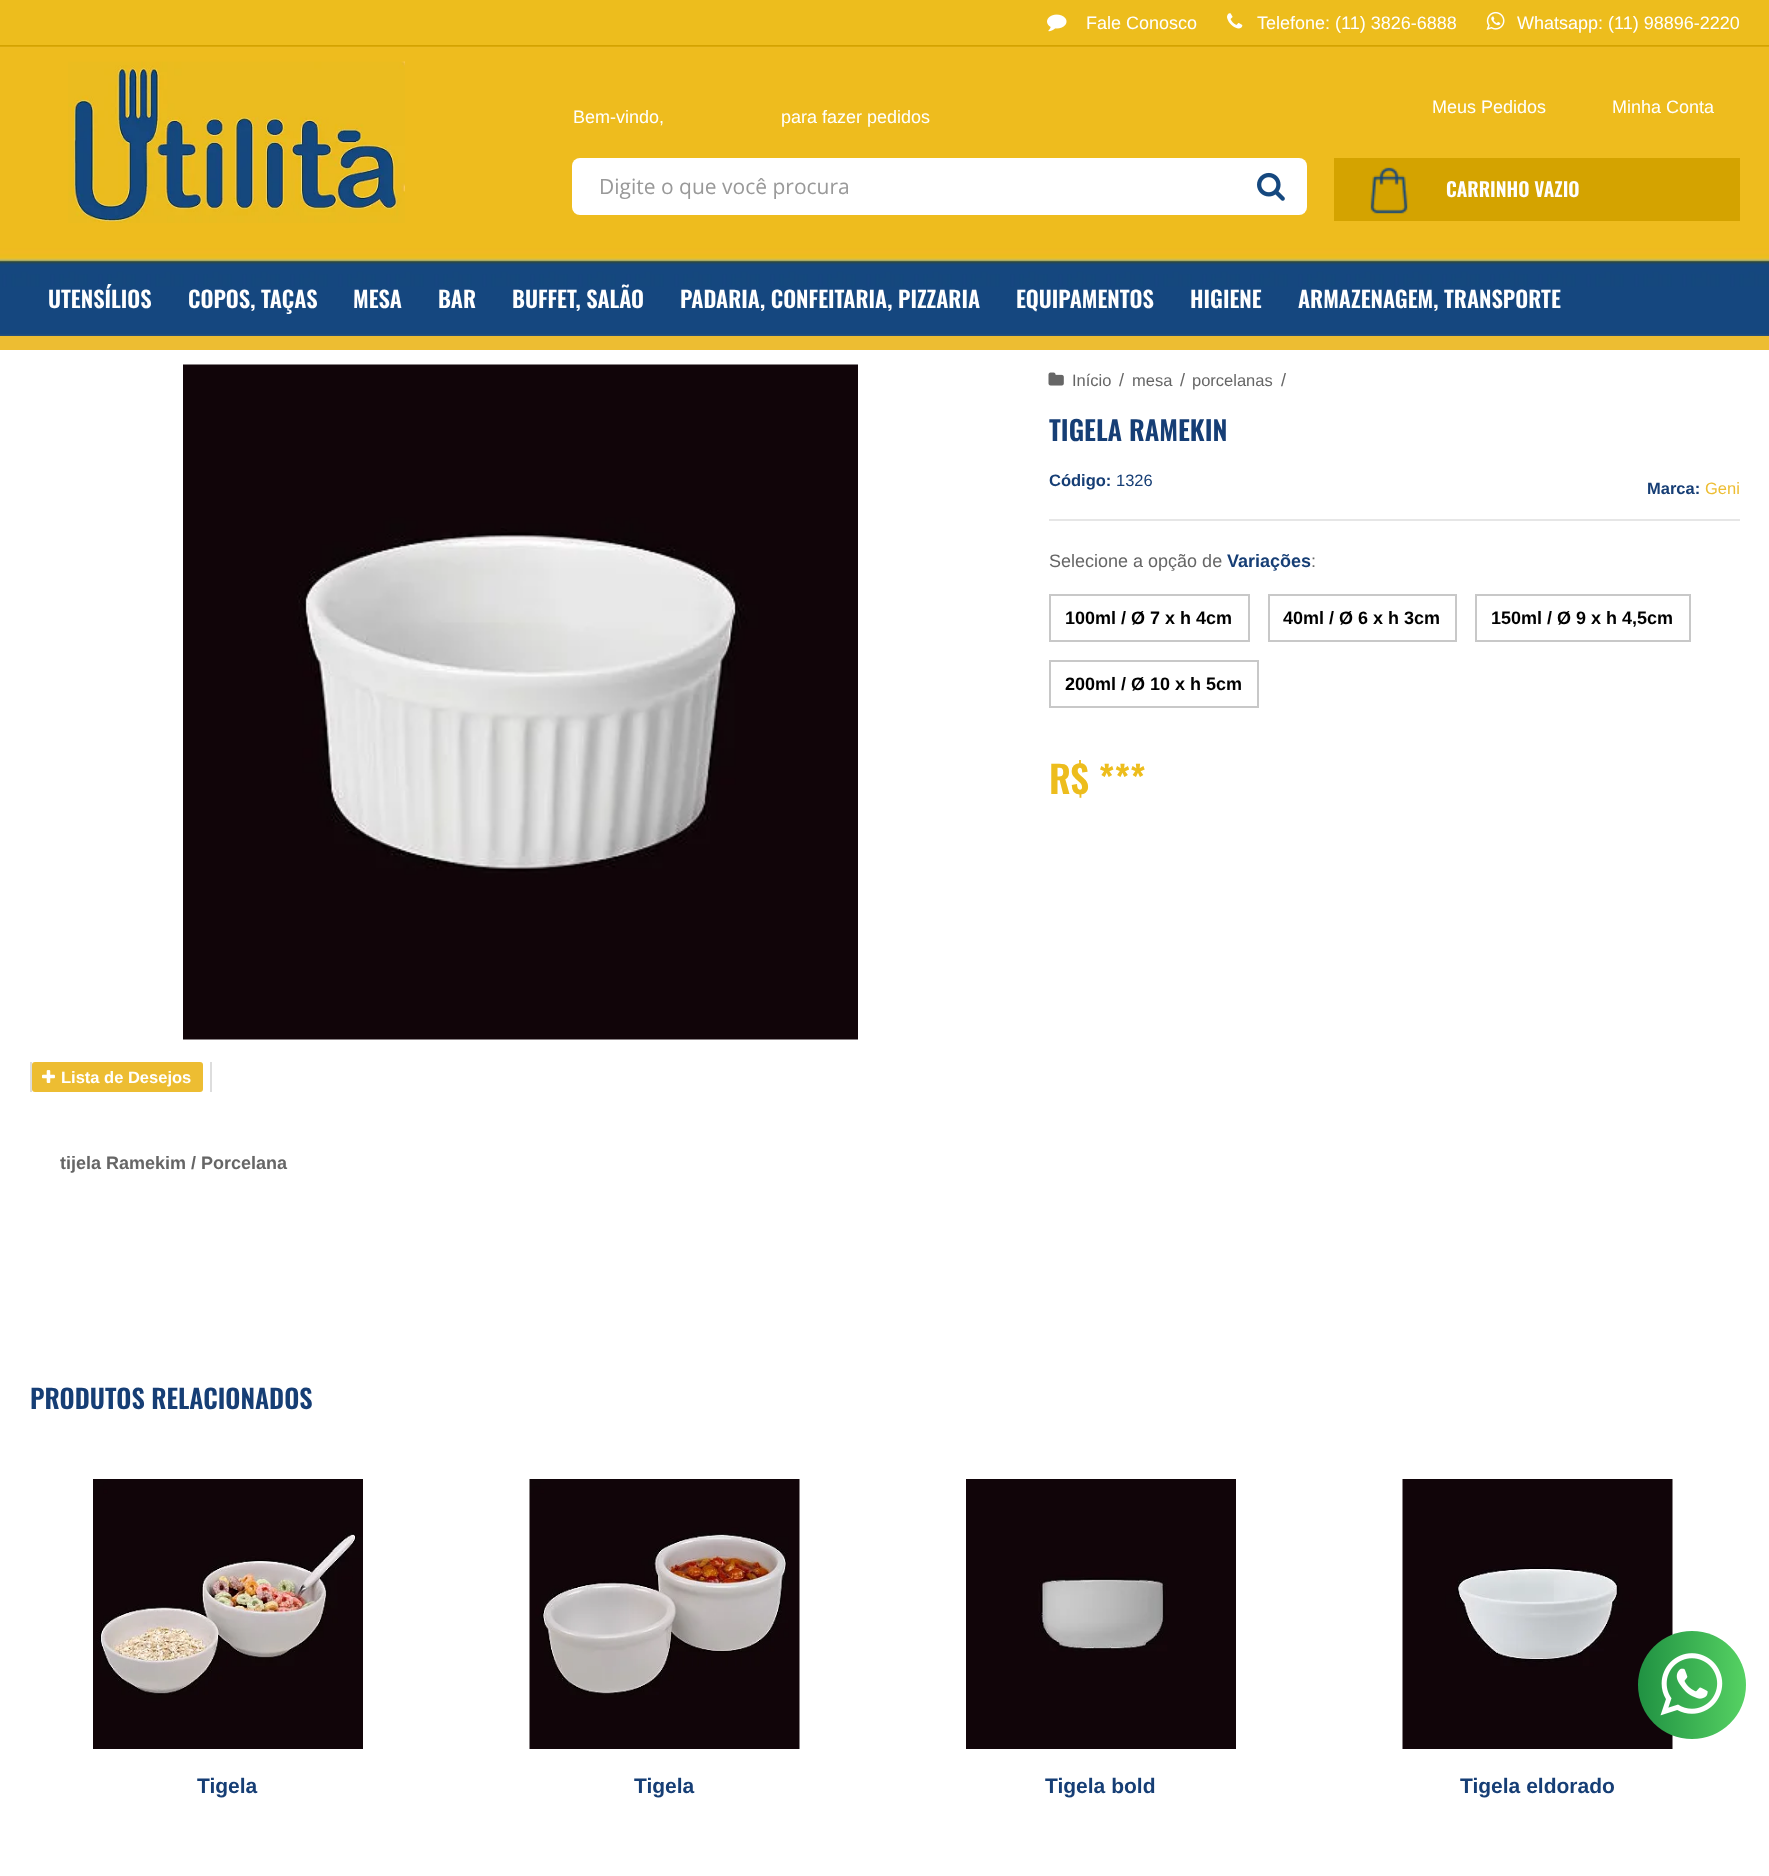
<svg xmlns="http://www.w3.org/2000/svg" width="1769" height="1876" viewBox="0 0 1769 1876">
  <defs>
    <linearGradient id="g1" gradientUnits="userSpaceOnUse" x1="1638" y1="1685" x2="1746" y2="1685"><stop offset="0" stop-color="#209142"/><stop offset="1" stop-color="#56d263"/></linearGradient>
  </defs>
  <rect width="100%" height="100%" fill="#ffffff"/>
  <rect x="0" y="0" width="1769" height="45" fill="#edbd1d"/>
  <rect x="0" y="45" width="1769" height="2" fill="#d4a300"/>
  <image x="1047" y="14" width="20" height="18" href="img1.png"/>
  <text x="1086" y="29" font-family="Liberation Sans" font-size="18" fill="#ffffff">Fale Conosco</text>
  <image x="1227" y="13" width="16" height="16" href="img2.png"/>
  <text x="1257" y="29" font-family="Liberation Sans" font-size="18" fill="#ffffff">Telefone: (11) 3826-6888</text>
  <image x="1486" y="11" width="19" height="19" href="img3.png"/>
  <text x="1517" y="29" font-family="Liberation Sans" font-size="18" fill="#ffffff">Whatsapp: (11) 98896-2220</text>
  <rect x="0" y="47" width="1769" height="303" fill="#edbd32"/>
  <image x="0" y="46" width="1769" height="290" href="img4.png"/>
  <image x="68" y="61" width="337" height="162" href="img5.png"/>
  <text x="1432" y="113" font-family="Liberation Sans" font-size="18" fill="#ffffff">Meus Pedidos</text>
  <text x="1612" y="113" font-family="Liberation Sans" font-size="18" fill="#ffffff">Minha Conta</text>
  <text x="573" y="123" font-family="Liberation Sans" font-size="18" fill="#ffffff">Bem-vindo,</text>
  <text x="781" y="123" font-family="Liberation Sans" font-size="18" fill="#ffffff">para fazer pedidos</text>
  <rect x="572" y="158" width="735" height="57" rx="8" fill="#ffffff"/>
  <text x="599" y="194" font-family="Open Sans" font-size="21" fill="#999999">Digite o que você procura</text>
  <image x="1257" y="172" width="28" height="29" href="img6.png"/>
  <rect x="1334" y="158" width="406" height="63" fill="#d4a300"/>
  <image x="1370" y="167" width="38" height="47" href="img7.png"/>
  <text x="1446" y="197" font-family="Oswald" font-size="19.5" font-weight="600" fill="#ffffff">CARRINHO VAZIO</text>
  <text x="48" y="308" font-family="Oswald" font-size="22.5" font-weight="600" fill="#ffffff">UTENSÍLIOS</text>
  <text x="188" y="308" font-family="Oswald" font-size="22.5" font-weight="600" fill="#ffffff">COPOS, TAÇAS</text>
  <text x="353" y="308" font-family="Oswald" font-size="22.5" font-weight="600" fill="#ffffff">MESA</text>
  <text x="438" y="308" font-family="Oswald" font-size="22.5" font-weight="600" fill="#ffffff">BAR</text>
  <text x="512" y="308" font-family="Oswald" font-size="22.5" font-weight="600" fill="#ffffff">BUFFET, SALÃO</text>
  <text x="680" y="308" font-family="Oswald" font-size="22.5" font-weight="600" fill="#ffffff">PADARIA, CONFEITARIA, PIZZARIA</text>
  <text x="1016" y="308" font-family="Oswald" font-size="22.5" font-weight="600" fill="#ffffff">EQUIPAMENTOS</text>
  <text x="1190" y="308" font-family="Oswald" font-size="22.5" font-weight="600" fill="#ffffff">HIGIENE</text>
  <text x="1298" y="308" font-family="Oswald" font-size="22.5" font-weight="600" fill="#ffffff">ARMAZENAGEM, TRANSPORTE</text>
  <image x="1048" y="372" width="16" height="14" href="img8.png"/>
  <text x="1072" y="386" font-family="Liberation Sans" font-size="16.5" fill="#666666">Início</text>
  <text x="1119" y="386" font-family="Liberation Sans" font-size="18" fill="#666666">/</text>
  <text x="1132" y="386" font-family="Liberation Sans" font-size="16.5" fill="#666666">mesa</text>
  <text x="1180" y="386" font-family="Liberation Sans" font-size="18" fill="#666666">/</text>
  <text x="1192" y="386" font-family="Liberation Sans" font-size="16.5" fill="#666666">porcelanas</text>
  <text x="1281" y="386" font-family="Liberation Sans" font-size="18" fill="#666666">/</text>
  <text x="1049" y="441" font-family="Oswald" font-size="27" font-weight="600" fill="#163e75">TIGELA RAMEKIN</text>
  <rect x="1049" y="519" width="691" height="2" fill="#e6e6e6"/>
  <text x="1049" y="486" font-family="Liberation Sans" font-size="16.5" font-weight="bold" fill="#163e75">Código:</text>
  <text x="1116" y="486" font-family="Liberation Sans" font-size="16.5" fill="#163e75">1326</text>
  <text x="1647" y="494" font-family="Liberation Sans" font-size="16.5" font-weight="bold" fill="#163e75">Marca:</text>
  <text x="1705" y="494" font-family="Liberation Sans" font-size="16.5" fill="#edbd32">Geni</text>
  <text x="1049" y="567" font-family="Liberation Sans" font-size="18" fill="#666666">Selecione a opção de</text>
  <text x="1227" y="567" font-family="Liberation Sans" font-size="18" font-weight="bold" fill="#163e75">Variações</text>
  <text x="1311" y="567" font-family="Liberation Sans" font-size="18" fill="#666666">:</text>
  <rect x="1050" y="595" width="199" height="46" fill="none" stroke="#c8c8c8" stroke-width="2"/>
  <text x="1065" y="624" font-family="Liberation Sans" font-size="18" font-weight="bold" fill="#000000">100ml / Ø 7 x h 4cm</text>
  <rect x="1269" y="595" width="187" height="46" fill="none" stroke="#c8c8c8" stroke-width="2"/>
  <text x="1283" y="624" font-family="Liberation Sans" font-size="18" font-weight="bold" fill="#000000">40ml / Ø 6 x h 3cm</text>
  <rect x="1476" y="595" width="214" height="46" fill="none" stroke="#c8c8c8" stroke-width="2"/>
  <text x="1491" y="624" font-family="Liberation Sans" font-size="18" font-weight="bold" fill="#000000">150ml / Ø 9 x h 4,5cm</text>
  <rect x="1050" y="661" width="208" height="46" fill="none" stroke="#c8c8c8" stroke-width="2"/>
  <text x="1065" y="690" font-family="Liberation Sans" font-size="18" font-weight="bold" fill="#000000">200ml / Ø 10 x h 5cm</text>
  <text x="1049" y="794" font-family="Oswald" font-size="37.5" font-weight="600" fill="#edbd1d">R$ ***</text>
  <image x="183" y="364" width="675" height="676" href="img9.png"/>
  <rect x="30" y="1062" width="2" height="30" fill="#dddddd"/>
  <rect x="32" y="1062" width="171" height="30" rx="3" fill="#edbd32"/>
  <image x="42" y="1070" width="13" height="13" href="img10.png"/>
  <text x="61" y="1083" font-family="Liberation Sans" font-size="16.5" font-weight="bold" fill="#ffffff">Lista de Desejos</text>
  <rect x="210" y="1062" width="2" height="30" fill="#dddddd"/>
  <text x="60" y="1169" font-family="Liberation Sans" font-size="18" font-weight="bold" fill="#666666">tijela Ramekim / Porcelana</text>
  <text x="30" y="1409" font-family="Oswald" font-size="26.25" font-weight="600" fill="#163e75">PRODUTOS RELACIONADOS</text>
  <image x="93" y="1479" width="270" height="270" href="img11.png"/>
  <text x="197" y="1793" font-family="Liberation Sans" font-size="21" font-weight="bold" fill="#163e75">Tigela</text>
  <image x="529" y="1479" width="271" height="270" href="img12.png"/>
  <text x="634" y="1793" font-family="Liberation Sans" font-size="21" font-weight="bold" fill="#163e75">Tigela</text>
  <image x="966" y="1479" width="270" height="270" href="img13.png"/>
  <text x="1045" y="1793" font-family="Liberation Sans" font-size="21" font-weight="bold" fill="#163e75">Tigela bold</text>
  <image x="1402" y="1479" width="271" height="270" href="img14.png"/>
  <text x="1460" y="1793" font-family="Liberation Sans" font-size="21" font-weight="bold" fill="#163e75">Tigela eldorado</text>
  <circle cx="1692" cy="1685" r="54" fill="url(#g1)"/>
  <image x="1660" y="1653" width="63" height="63" href="img15.png"/>
</svg>
